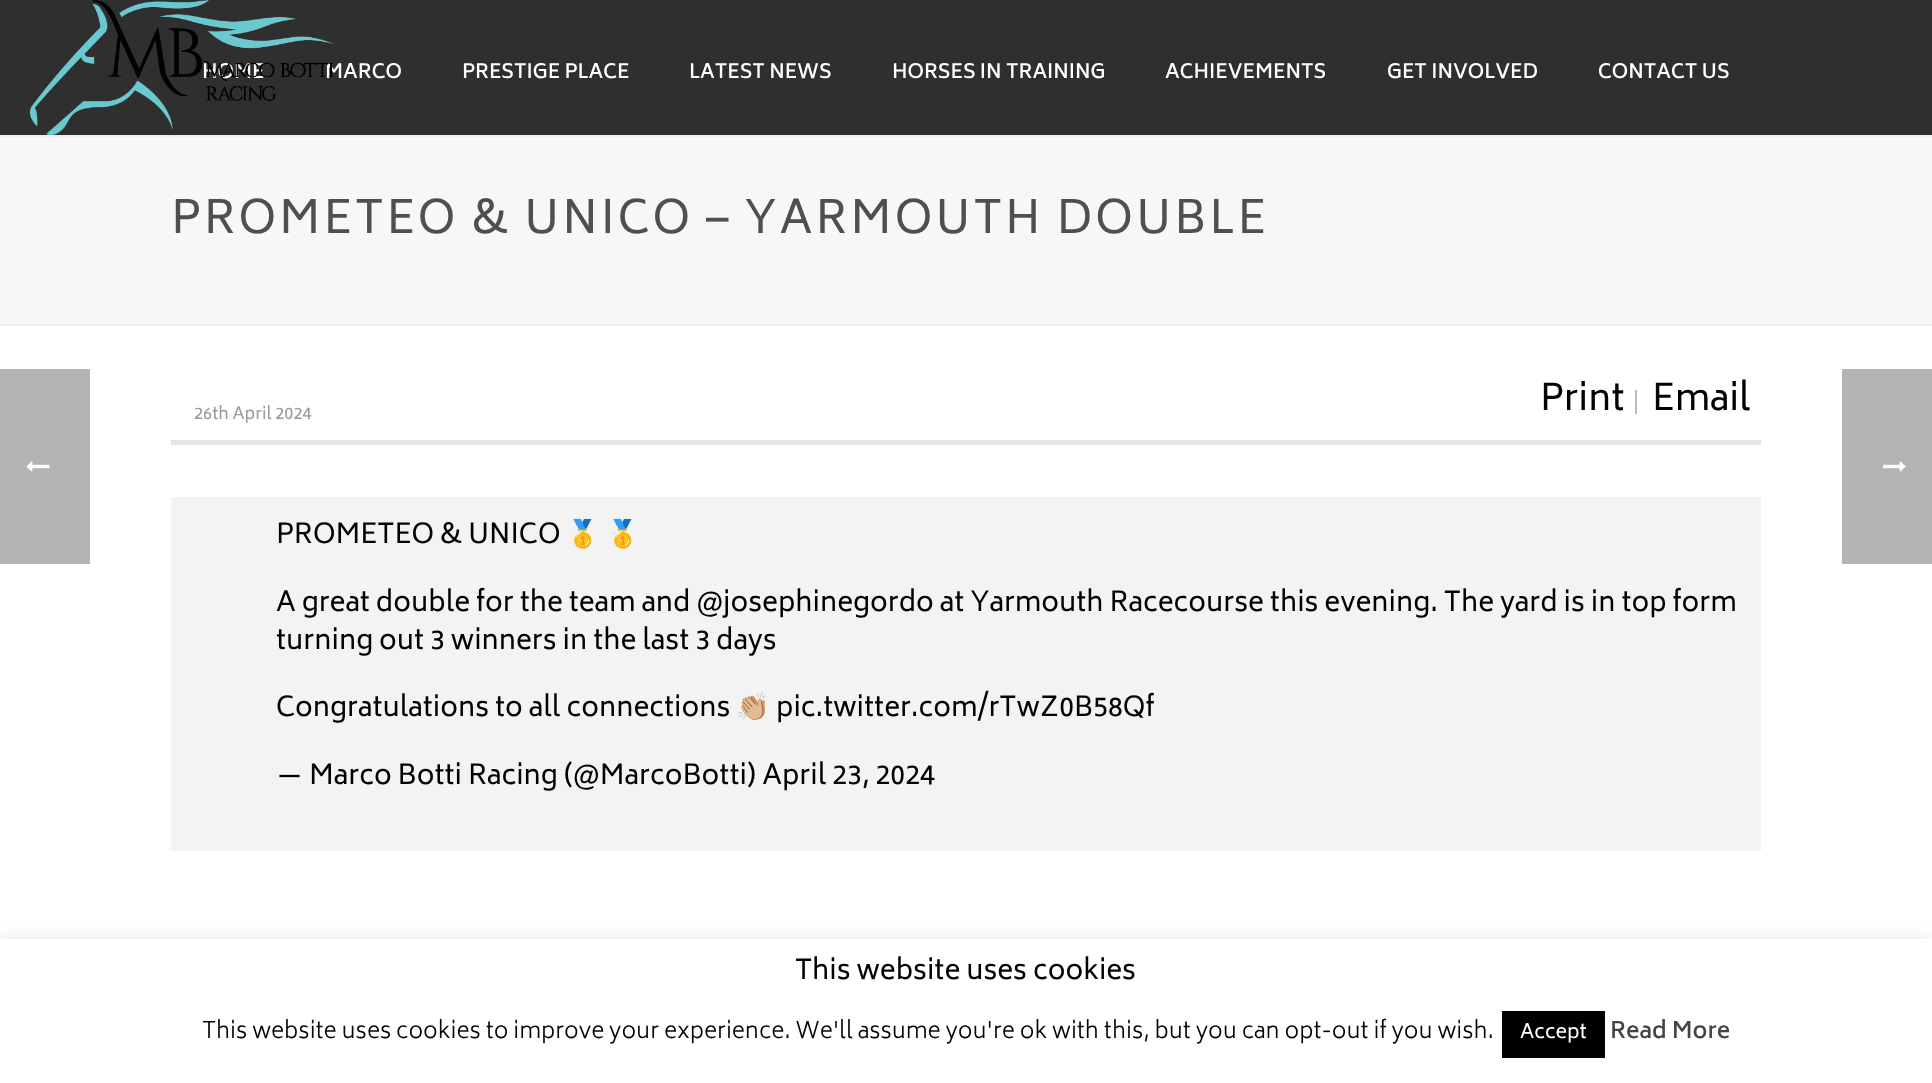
<svg xmlns="http://www.w3.org/2000/svg" width="1932" height="1083" viewBox="0 0 1932 1083">
  <defs>
    <filter id="blur1" x="-50%" y="-200%" width="200%" height="500%"><feGaussianBlur stdDeviation="7.5"/></filter>
  </defs>
  <rect width="100%" height="100%" fill="#ffffff"/>
  <rect x="0" y="369" width="90" height="195" fill="#b3b3b3"/>
  <image x="26" y="461" width="24" height="11" href="img1.png"/>
  <rect x="0" y="137" width="1932" height="187" fill="#f7f7f7"/>
  <rect x="0" y="324" width="1932" height="2" fill="#ededed"/>
  <rect x="0" y="135" width="1932" height="2" fill="#ededed"/>
  <rect x="0" y="0" width="1932" height="135" fill="#2f2f2f"/>
  <text x="202" y="78" font-family="Biryani" font-size="19.5" font-weight="600" fill="#ffffff">HOME</text>
  <text x="325" y="78" font-family="Biryani" font-size="19.5" font-weight="600" fill="#ffffff">MARCO</text>
  <image x="30" y="0" width="303" height="135" href="img2.png"/>
  <text x="462" y="78" font-family="Biryani" font-size="19.5" font-weight="600" fill="#ffffff">PRESTIGE PLACE</text>
  <text x="689" y="78" font-family="Biryani" font-size="19.5" font-weight="600" fill="#ffffff">LATEST NEWS</text>
  <text x="892" y="78" font-family="Biryani" font-size="19.5" font-weight="600" fill="#ffffff">HORSES IN TRAINING</text>
  <text x="1165" y="78" font-family="Biryani" font-size="19.5" font-weight="600" fill="#ffffff">ACHIEVEMENTS</text>
  <text x="1387" y="78" font-family="Biryani" font-size="19.5" font-weight="600" fill="#ffffff">GET INVOLVED</text>
  <text x="1598" y="78" font-family="Biryani" font-size="19.5" font-weight="600" fill="#ffffff">CONTACT US</text>
  <text x="171" y="233" font-family="Biryani" font-size="45" letter-spacing="3" fill="#4f4f4f">PROMETEO &amp; UNICO – YARMOUTH DOUBLE</text>
  <rect x="171" y="440" width="1590" height="5" fill="#e6e6e6"/>
  <rect x="1635" y="390" width="2" height="24" fill="#bcbcbc"/>
  <text x="1540" y="410" font-family="Biryani" font-size="36" fill="#020202">Print</text>
  <text x="1652" y="410" font-family="Biryani" font-size="36" fill="#020202">Email</text>
  <text x="194" y="419" font-family="Biryani" font-size="16.5" fill="#9a9a9a">26th April 2024</text>
  <rect x="171" y="497" width="1590" height="354" fill="#f3f3f3"/>
  <text x="276" y="543" font-family="Biryani" font-size="27" fill="#020202">PROMETEO &amp; UNICO</text>
  <text x="566" y="543" font-family="Noto Color Emoji" font-size="27" fill="#020202">🥇</text>
  <text x="606" y="543" font-family="Noto Color Emoji" font-size="27" fill="#020202">🥇</text>
  <text x="276" y="611" font-family="Biryani" font-size="27" fill="#020202">A great double for the team and @josephinegordo at Yarmouth Racecourse this evening. The yard is in top form</text>
  <text x="276" y="649" font-family="Biryani" font-size="27" fill="#020202">turning out 3 winners in the last 3 days</text>
  <text x="276" y="716" font-family="Biryani" font-size="27" fill="#020202">Congratulations to all connections</text>
  <text x="736" y="716" font-family="Noto Color Emoji" font-size="27" fill="#020202">👏🏼</text>
  <text x="776" y="716" font-family="Biryani" font-size="27" fill="#020202">pic.twitter.com/rTwZ0B58Qf</text>
  <text x="276" y="784" font-family="Biryani" font-size="27" fill="#020202">— Marco Botti Racing (@MarcoBotti) April 23, 2024</text>
  <rect x="1842" y="369" width="90" height="195" fill="#b3b3b3"/>
  <image x="1883" y="461" width="23" height="11" href="img3.png"/>
  <rect x="0" y="938" width="1932" height="144" fill="#acabab" fill-opacity="0.3" filter="url(#blur1)"/>
  <rect x="0" y="939" width="1932" height="144" fill="#ffffff"/>
  <text x="795" y="979" font-family="Biryani" font-size="27" fill="#020202">This website uses cookies</text>
  <text x="202" y="1038" font-family="Biryani" font-size="22.5" font-weight="300" fill="#020202">This website uses cookies to improve your experience. We'll assume you're ok with this, but you can opt-out if you wish.</text>
  <rect x="1502" y="1011" width="103" height="47" fill="#000000"/>
  <text x="1520" y="1038" font-family="Biryani" font-size="19.5" fill="#ffffff">Accept</text>
  <text x="1610" y="1038" font-family="Biryani" font-size="22.5" font-weight="600" fill="#444444">Read More</text>
</svg>
